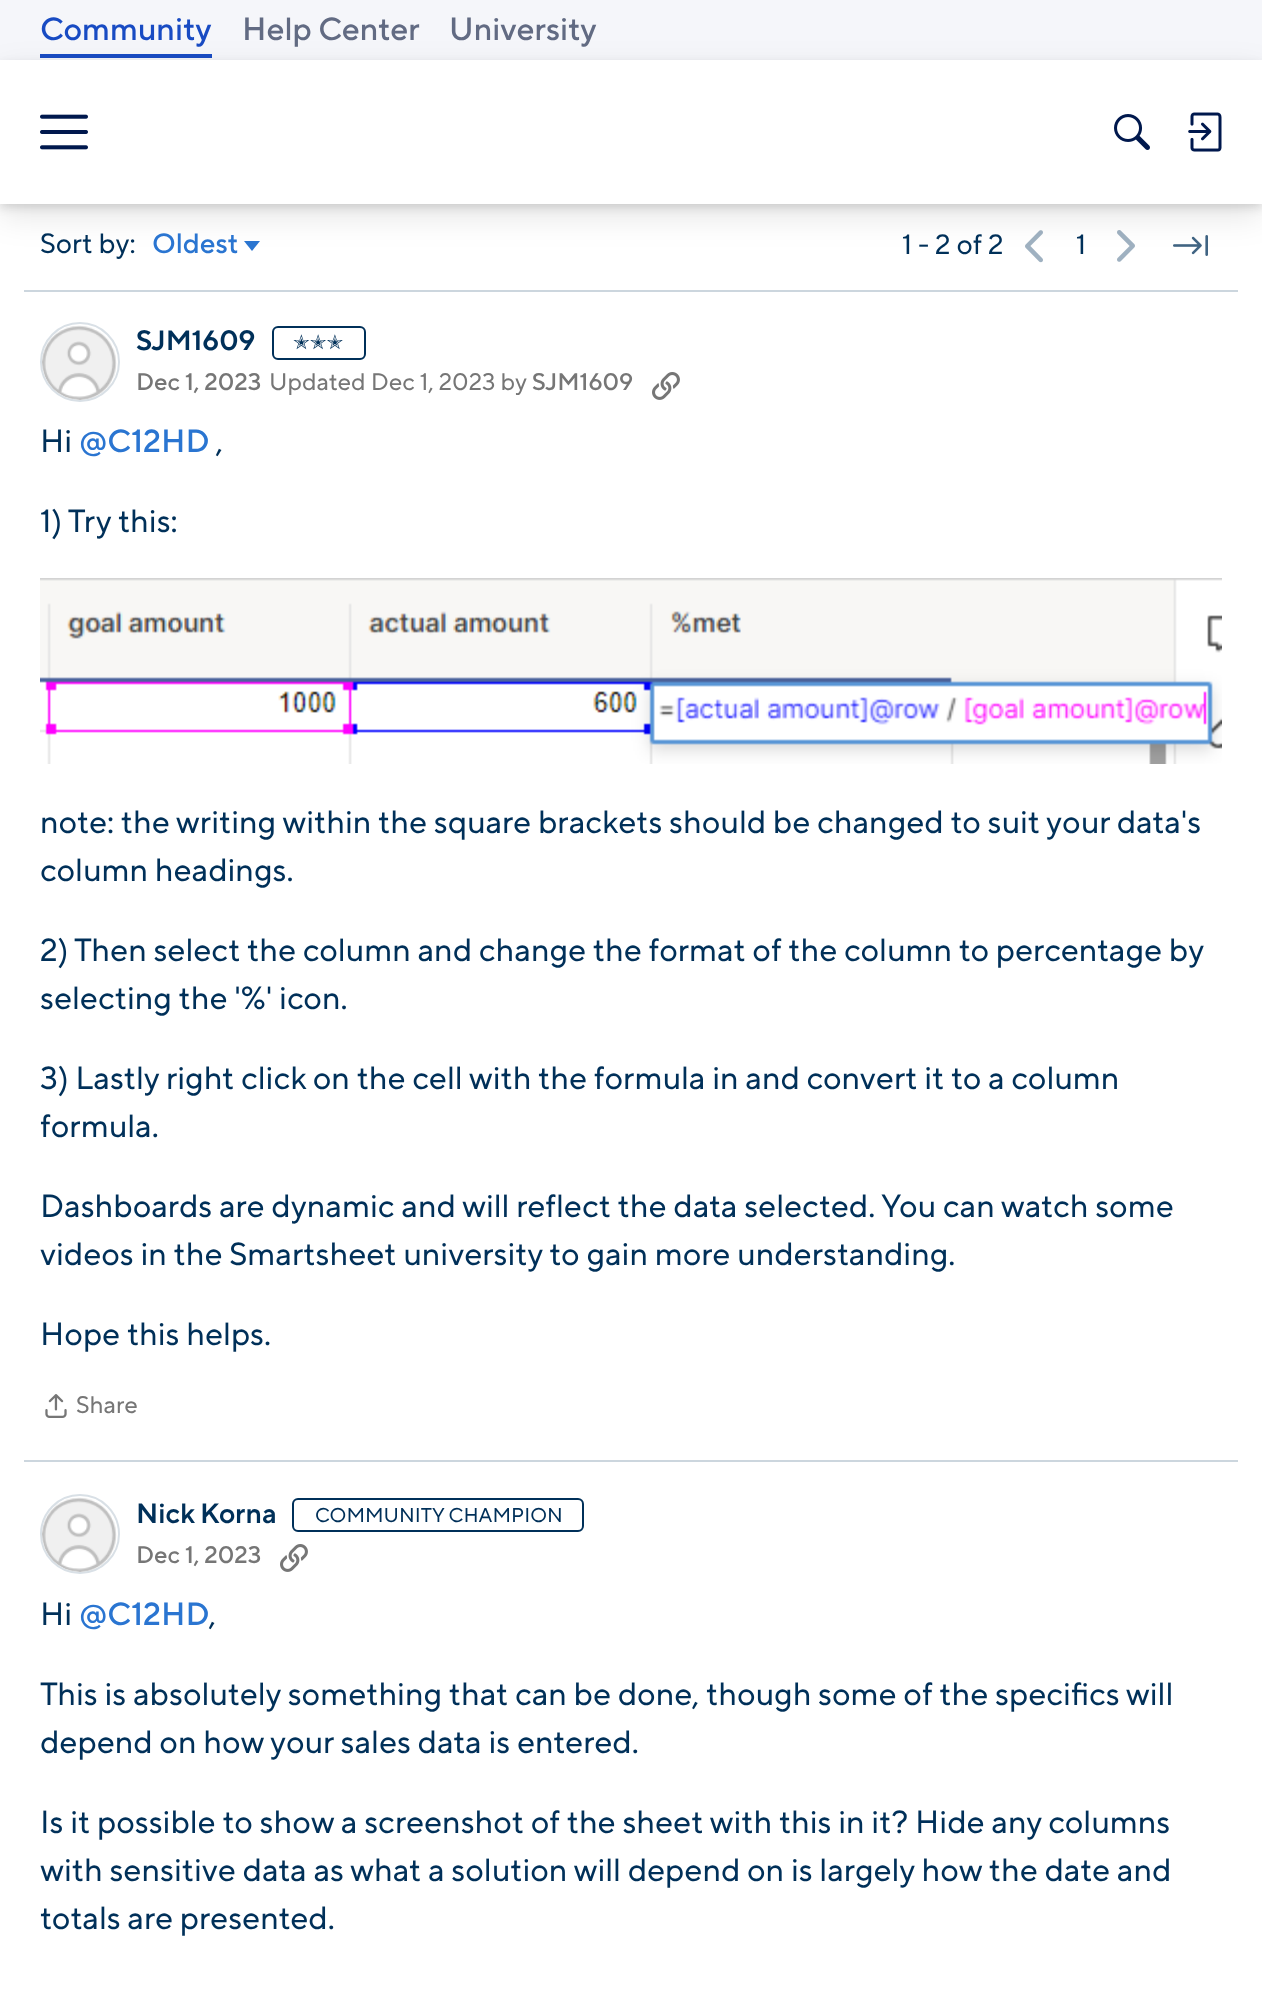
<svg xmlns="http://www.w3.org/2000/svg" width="1262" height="1995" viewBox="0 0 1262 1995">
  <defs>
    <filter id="blur1" x="-50%" y="-200%" width="200%" height="500%"><feGaussianBlur stdDeviation="16"/></filter>
    <filter id="blur2" x="-50%" y="-200%" width="200%" height="500%"><feGaussianBlur stdDeviation="4"/></filter>
  </defs>
  <rect width="100%" height="100%" fill="#ffffff"/>
  <rect x="0" y="0" width="1262" height="60" fill="#f5f6fa"/>
  <text x="40" y="40" font-family="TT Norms" font-size="32" font-weight="500" fill="#184bc3">Community</text>
  <rect x="40" y="54" width="172" height="4" fill="#184bc3"/>
  <text x="242" y="40" font-family="TT Norms" font-size="32" font-weight="500" fill="#626b83">Help Center</text>
  <text x="449" y="40" font-family="TT Norms" font-size="32" font-weight="500" fill="#626b83">University</text>
  <path d="M244 241H260L252 251Z" fill="#2a75d1"/>
  <image x="1025" y="230" width="18" height="33" href="img4.png"/>
  <image x="1117" y="230" width="18" height="32" href="img5.png"/>
  <image x="1173" y="235" width="35" height="21" href="img6.png"/>
  <rect x="0" y="72" width="1262" height="144" fill="#000000" fill-opacity="0.1" filter="url(#blur1)"/>
  <rect x="0" y="64" width="1262" height="144" fill="#000000" fill-opacity="0.12" filter="url(#blur2)"/>
  <rect x="0" y="60" width="1262" height="144" fill="#ffffff"/>
  <image x="40" y="114" width="48" height="36" href="img1.png"/>
  <image x="1114" y="114" width="36" height="36" href="img2.png"/>
  <image x="1188" y="112" width="34" height="40" href="img3.png"/>
  <text x="40" y="253" font-family="TT Norms" font-size="28" fill="#003059">Sort by:</text>
  <text x="152" y="253" font-family="TT Norms" font-size="28" font-weight="500" fill="#2a75d1">Oldest</text>
  <text x="902" y="254" font-family="TT Norms" font-size="28" fill="#003059">1 - 2 of 2</text>
  <text x="1076" y="254" font-family="TT Norms" font-size="28" fill="#003059">1</text>
  <rect x="24" y="290" width="1214" height="2" fill="#ccd6de"/>
  <circle cx="80" cy="362" r="39" fill="none" stroke="#d9e0e6" stroke-width="2"/>
  <image x="42" y="325" width="75" height="75" href="img7.png"/>
  <text x="136" y="350" font-family="TT Norms" font-size="28" font-weight="600" fill="#003059">SJM1609</text>
  <rect x="273" y="327" width="92" height="32" rx="5" fill="none" stroke="#003059" stroke-width="2"/>
  <text x="293" y="349" font-family="DejaVu Sans" font-size="20" fill="#003059">✭✭✭</text>
  <text x="136" y="390" font-family="TT Norms" font-size="24" font-weight="500" fill="#767676">Dec 1, 2023</text>
  <text x="269" y="390" font-family="TT Norms" font-size="24" fill="#767676">Updated Dec 1, 2023 by</text>
  <text x="532" y="390" font-family="TT Norms" font-size="24" font-weight="500" fill="#767676">SJM1609</text>
  <image x="652" y="372" width="28" height="28" href="img8.png"/>
  <text x="40" y="452" font-family="TT Norms" font-size="32" fill="#003059">Hi</text>
  <text x="79" y="452" font-family="TT Norms" font-size="32" font-weight="500" fill="#2a75d1">@C12HD</text>
  <text x="216" y="452" font-family="TT Norms" font-size="32" fill="#003059">,</text>
  <text x="40" y="532" font-family="TT Norms" font-size="32" fill="#003059">1) Try this:</text>
  <image x="40" y="578" width="1182" height="186" href="img9.png"/>
  <text x="40" y="833" font-family="TT Norms" font-size="32" fill="#003059">note: the writing within the square brackets should be changed to suit your data's</text>
  <text x="40" y="881" font-family="TT Norms" font-size="32" fill="#003059">column headings.</text>
  <text x="40" y="961" font-family="TT Norms" font-size="32" fill="#003059">2) Then select the column and change the format of the column to percentage by</text>
  <text x="40" y="1009" font-family="TT Norms" font-size="32" fill="#003059">selecting the '%' icon.</text>
  <text x="40" y="1089" font-family="TT Norms" font-size="32" fill="#003059">3) Lastly right click on the cell with the formula in and convert it to a column</text>
  <text x="40" y="1137" font-family="TT Norms" font-size="32" fill="#003059">formula.</text>
  <text x="40" y="1217" font-family="TT Norms" font-size="32" fill="#003059">Dashboards are dynamic and will reflect the data selected. You can watch some</text>
  <text x="40" y="1265" font-family="TT Norms" font-size="32" fill="#003059">videos in the Smartsheet university to gain more understanding.</text>
  <text x="40" y="1345" font-family="TT Norms" font-size="32" fill="#003059">Hope this helps.</text>
  <image x="45" y="1394" width="22" height="24" href="img10.png"/>
  <text x="76" y="1413" font-family="TT Norms" font-size="24" fill="#767676">Share</text>
  <rect x="24" y="1460" width="1214" height="2" fill="#ccd6de"/>
  <circle cx="80" cy="1534" r="39" fill="none" stroke="#d9e0e6" stroke-width="2"/>
  <image x="42" y="1497" width="75" height="75" href="img11.png"/>
  <text x="136" y="1523" font-family="TT Norms" font-size="28" font-weight="600" fill="#003059">Nick Korna</text>
  <rect x="293" y="1499" width="290" height="32" rx="5" fill="none" stroke="#003059" stroke-width="2"/>
  <text x="315" y="1522" font-family="TT Norms" font-size="20" fill="#003059">COMMUNITY CHAMPION</text>
  <text x="136" y="1563" font-family="TT Norms" font-size="24" font-weight="500" fill="#767676">Dec 1, 2023</text>
  <image x="280" y="1544" width="28" height="28" href="img8.png"/>
  <text x="40" y="1625" font-family="TT Norms" font-size="32" fill="#003059">Hi</text>
  <text x="79" y="1625" font-family="TT Norms" font-size="32" font-weight="500" fill="#2a75d1">@C12HD</text>
  <text x="209" y="1625" font-family="TT Norms" font-size="32" fill="#003059">,</text>
  <text x="40" y="1705" font-family="TT Norms" font-size="32" fill="#003059">This is absolutely something that can be done, though some of the specifics will</text>
  <text x="40" y="1753" font-family="TT Norms" font-size="32" fill="#003059">depend on how your sales data is entered.</text>
  <text x="40" y="1833" font-family="TT Norms" font-size="32" fill="#003059">Is it possible to show a screenshot of the sheet with this in it? Hide any columns</text>
  <text x="40" y="1881" font-family="TT Norms" font-size="32" fill="#003059">with sensitive data as what a solution will depend on is largely how the date and</text>
  <text x="40" y="1929" font-family="TT Norms" font-size="32" fill="#003059">totals are presented.</text>
</svg>
